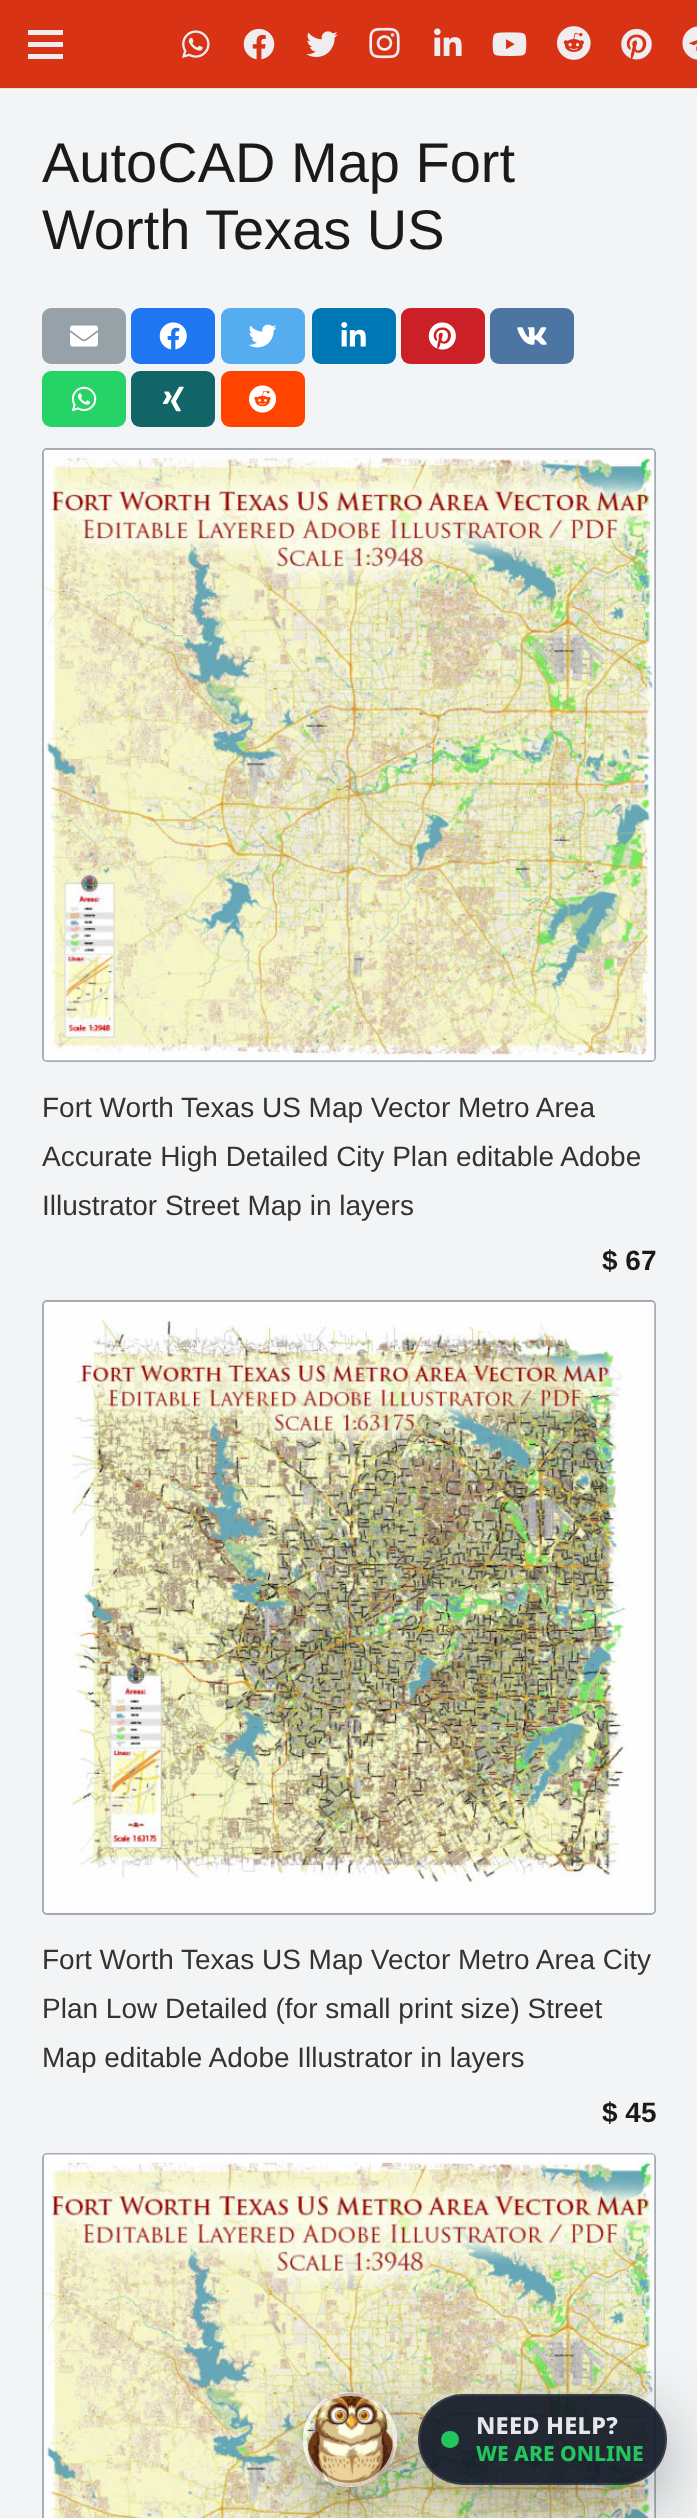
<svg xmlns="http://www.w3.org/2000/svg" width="697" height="2518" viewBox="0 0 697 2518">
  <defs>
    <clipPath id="clip1"><path d="M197 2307H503V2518H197ZM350 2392C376 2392 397 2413 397 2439V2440C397 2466 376 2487 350 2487C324 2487 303 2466 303 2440V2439C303 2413 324 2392 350 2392Z" clip-rule="evenodd"/></clipPath>
    <filter id="blur1" x="-50%" y="-200%" width="200%" height="500%"><feGaussianBlur stdDeviation="35"/></filter>
    <clipPath id="clip2"><path d="M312 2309H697V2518H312ZM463.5 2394H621.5C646.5 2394 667 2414.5 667 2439.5C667 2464.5 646.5 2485 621.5 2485H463.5C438.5 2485 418 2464.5 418 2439.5C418 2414.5 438.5 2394 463.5 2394Z" clip-rule="evenodd"/></clipPath>
  </defs>
  <rect width="100%" height="100%" fill="#f2f4f5"/>
  <rect x="0" y="88" width="697" height="1" fill="#dfe0e1"/>
  <rect x="0" y="0" width="697" height="88" fill="#d93315"/>
  <rect x="28" y="42" width="35" height="5" fill="#f0edf0"/>
  <rect x="28" y="30" width="35" height="5" fill="#f0edf0"/>
  <rect x="28" y="54" width="35" height="5" fill="#f0edf0"/>
  <image x="182" y="30" width="28" height="28" href="img1.png"/>
  <image x="243" y="28" width="32" height="32" href="img2.png"/>
  <image x="306" y="31" width="32" height="26" href="img3.png"/>
  <image x="369" y="27" width="31" height="32" href="img4.png"/>
  <image x="434" y="28" width="28" height="28" href="img5.png"/>
  <image x="492" y="32" width="35" height="24" href="img6.png"/>
  <image x="557" y="26" width="34" height="34" href="img7.png"/>
  <image x="621" y="28" width="31" height="32" href="img8.png"/>
  <image x="682" y="26" width="15" height="34" href="img9.png"/>
  <text x="42" y="182" font-family="Liberation Sans" font-size="56" fill="#1a1a1a">AutoCAD Map Fort</text>
  <text x="42" y="249" font-family="Liberation Sans" font-size="56" fill="#1a1a1a">Worth Texas US</text>
  <rect x="42" y="308" width="84" height="56" rx="9" fill="#96a2a8"/>
  <image x="70" y="325" width="28" height="22" href="img10.png"/>
  <rect x="131" y="308" width="84" height="56" rx="9" fill="#1e77f0"/>
  <image x="159" y="322" width="28" height="28" href="img11.png"/>
  <rect x="221" y="308" width="84" height="56" rx="9" fill="#55acee"/>
  <image x="248" y="324" width="29" height="24" href="img12.png"/>
  <rect x="312" y="308" width="84" height="56" rx="9" fill="#0077b5"/>
  <image x="341" y="322" width="25" height="25" href="img13.png"/>
  <rect x="401" y="308" width="84" height="56" rx="9" fill="#cb2027"/>
  <image x="428" y="322" width="28" height="28" href="img14.png"/>
  <rect x="490" y="308" width="84" height="56" rx="9" fill="#4c75a3"/>
  <image x="517" y="327" width="30" height="18" href="img15.png"/>
  <rect x="42" y="371" width="84" height="56" rx="9" fill="#25d366"/>
  <image x="71" y="386" width="26" height="26" href="img16.png"/>
  <rect x="131" y="371" width="84" height="56" rx="9" fill="#126567"/>
  <image x="162" y="386" width="22" height="26" href="img17.png"/>
  <rect x="221" y="371" width="84" height="56" rx="9" fill="#ff4301"/>
  <image x="248" y="385" width="28" height="28" href="img18.png"/>
  <rect x="43" y="449" width="612" height="612" rx="4" fill="none" stroke="#a4abb3" stroke-width="2"/>
  <image x="43" y="449" width="612" height="612" href="img19.png"/>
  <text x="42" y="1117" font-family="Liberation Sans" font-size="28" fill="#333333">Fort Worth Texas US Map Vector Metro Area</text>
  <text x="42" y="1166" font-family="Liberation Sans" font-size="28" fill="#333333">Accurate High Detailed City Plan editable Adobe</text>
  <text x="42" y="1215" font-family="Liberation Sans" font-size="28" fill="#333333">Illustrator Street Map in layers</text>
  <text x="602" y="1270" font-family="Liberation Sans" font-size="28" font-weight="bold" fill="#1a1a1a">$ 67</text>
  <rect x="43" y="1301" width="612" height="613" rx="4" fill="none" stroke="#a4abb3" stroke-width="2"/>
  <image x="43" y="1302" width="612" height="611" href="img20.png"/>
  <text x="42" y="1969" font-family="Liberation Sans" font-size="28" fill="#333333">Fort Worth Texas US Map Vector Metro Area City</text>
  <text x="42" y="2018" font-family="Liberation Sans" font-size="28" fill="#333333">Plan Low Detailed (for small print size) Street</text>
  <text x="42" y="2067" font-family="Liberation Sans" font-size="28" fill="#333333">Map editable Adobe Illustrator in layers</text>
  <text x="602" y="2122" font-family="Liberation Sans" font-size="28" font-weight="bold" fill="#1a1a1a">$ 45</text>
  <rect x="43" y="2154" width="612" height="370" rx="4" fill="none" stroke="#a4abb3" stroke-width="2"/>
  <image x="43" y="2154" width="612" height="364" href="img21.png"/>
  <g clip-path="url(#clip1)">
    <rect x="303" y="2413" width="94" height="95" rx="47" fill="#000000" fill-opacity="0.35" filter="url(#blur1)"/>
  </g>
  <image x="306" y="2392" width="88" height="96" href="img22.png"/>
  <rect x="305" y="2394" width="90" height="91" rx="45" fill="none" stroke="#ffffff" stroke-opacity="0.65" stroke-width="4"/>
  <g clip-path="url(#clip2)">
    <rect x="418" y="2415" width="249" height="91" rx="45.5" fill="#000000" fill-opacity="0.35" filter="url(#blur1)"/>
  </g>
  <rect x="418" y="2394" width="249" height="91" rx="45.5" fill="#111827" fill-opacity="0.92"/>
  <rect x="419" y="2395" width="247" height="89" rx="44.5" fill="none" stroke="#ffffff" stroke-opacity="0.1" stroke-width="2"/>
  <rect x="441" y="2431" width="18" height="17" rx="8.5" fill="#22c55e"/>
  <text x="476" y="2434" font-family="Noto Sans" font-size="23.5" font-weight="800" letter-spacing="0.25" fill="#e5e7eb">NEED HELP?</text>
  <text x="476" y="2461" font-family="Noto Sans" font-size="21" font-weight="800" fill="#22c55e">WE ARE ONLINE</text>
</svg>
